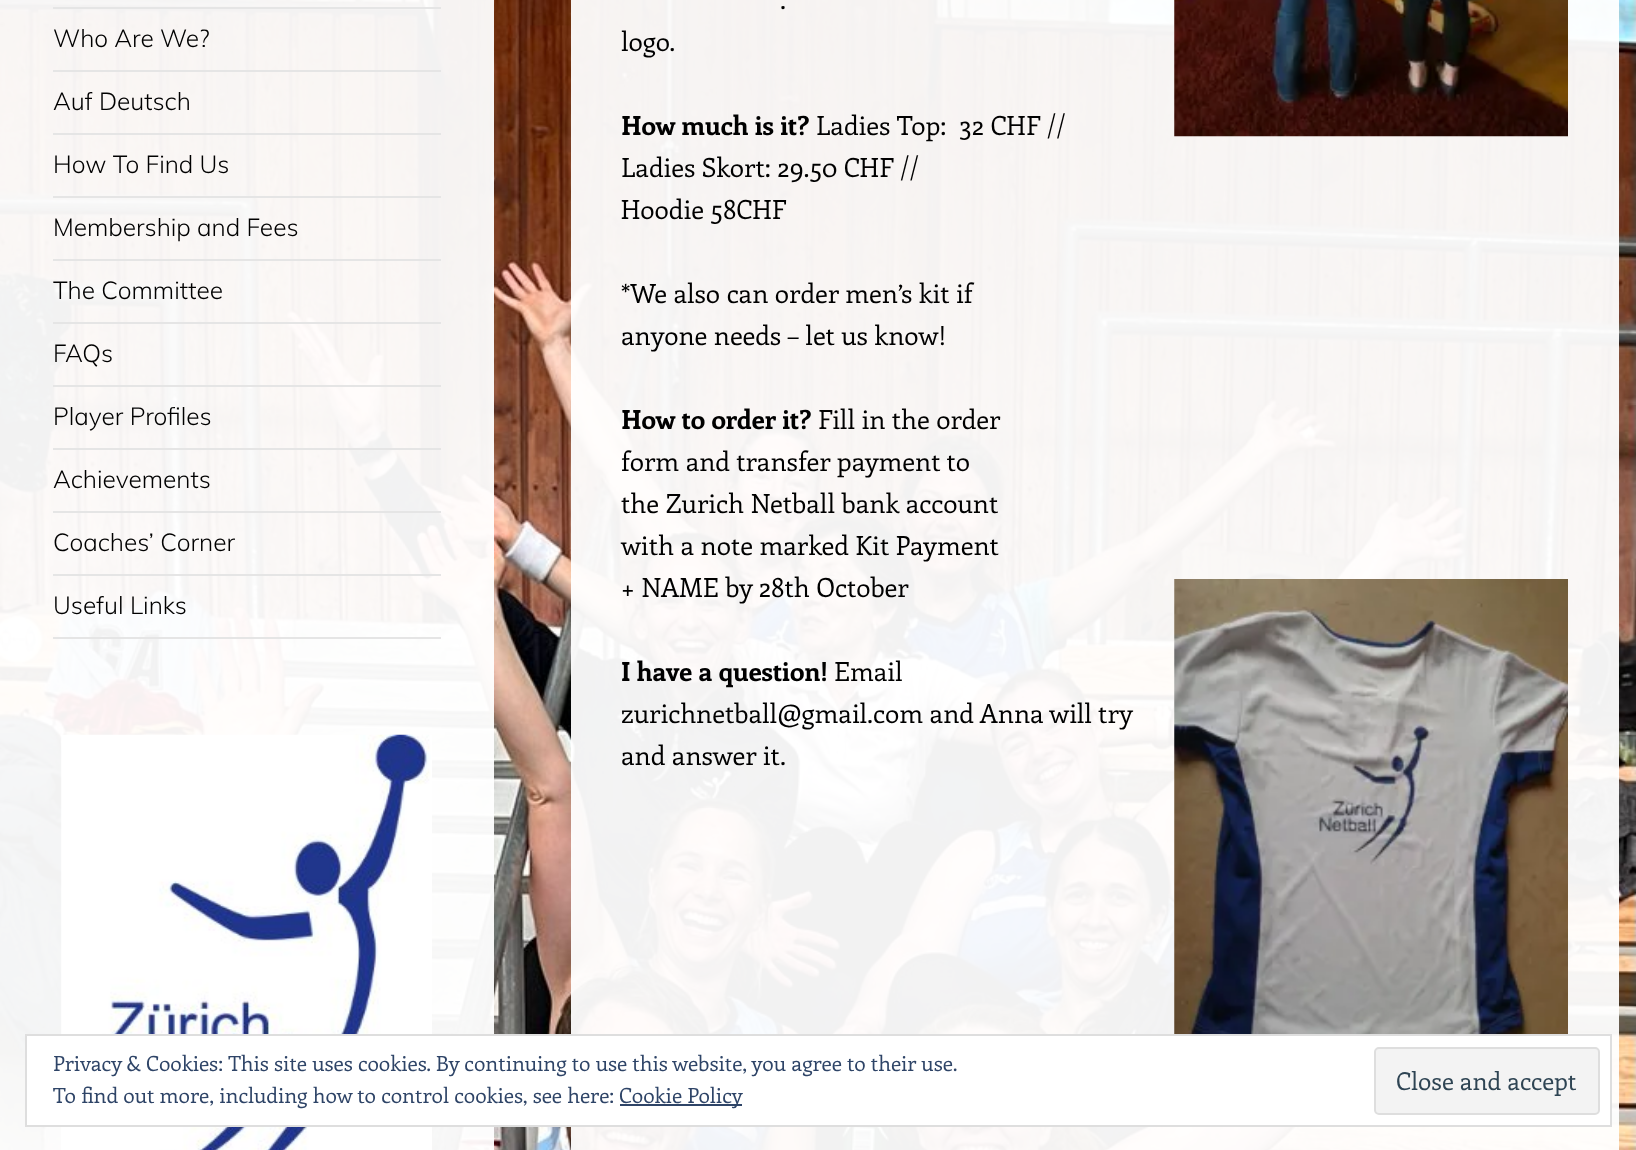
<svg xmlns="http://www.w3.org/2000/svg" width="1636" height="1150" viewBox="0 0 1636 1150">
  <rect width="100%" height="100%" fill="#ffffff"/>
  <image x="0" y="0" width="1636" height="1150" href="img1.png"/>
  <rect x="0" y="0" width="494" height="1150" fill="#ffffff" fill-opacity="0.95"/>
  <rect x="571" y="0" width="1048" height="1150" fill="#ffffff" fill-opacity="0.95"/>
  <text x="780" y="9" font-family="Enriqueta" font-size="26.25" fill="#000000">.</text>
  <text x="621" y="51" font-family="Enriqueta" font-size="26.25" fill="#000000">logo.</text>
  <image x="1174" y="0" width="394" height="137" href="img2.png"/>
  <image x="1174" y="579" width="394" height="455" href="img3.png"/>
  <text x="621" y="135" font-family="Enriqueta" font-size="26.25" font-weight="bold" fill="#000000">How much is it?</text>
  <text x="816" y="135" font-family="Enriqueta" font-size="26.25" fill="#000000" xml:space="preserve">Ladies Top:  32 CHF //</text>
  <text x="621" y="177" font-family="Enriqueta" font-size="26.25" fill="#000000">Ladies Skort: 29.50 CHF //</text>
  <text x="621" y="219" font-family="Enriqueta" font-size="26.25" fill="#000000">Hoodie 58CHF</text>
  <text x="621" y="303" font-family="Enriqueta" font-size="26.25" fill="#000000">*We also can order men’s kit if</text>
  <text x="621" y="345" font-family="Enriqueta" font-size="26.25" fill="#000000">anyone needs – let us know!</text>
  <text x="621" y="429" font-family="Enriqueta" font-size="26.25" font-weight="bold" fill="#000000">How to order it?</text>
  <text x="818" y="429" font-family="Enriqueta" font-size="26.25" fill="#000000">Fill in the order</text>
  <text x="621" y="471" font-family="Enriqueta" font-size="26.25" fill="#000000">form and transfer payment to</text>
  <text x="621" y="513" font-family="Enriqueta" font-size="26.25" fill="#000000">the Zurich Netball bank account</text>
  <text x="621" y="555" font-family="Enriqueta" font-size="26.25" fill="#000000">with a note marked Kit Payment</text>
  <text x="621" y="597" font-family="Enriqueta" font-size="26.25" fill="#000000">+ NAME by 28th October</text>
  <text x="621" y="681" font-family="Enriqueta" font-size="26.25" font-weight="bold" fill="#000000">I have a question!</text>
  <text x="834" y="681" font-family="Enriqueta" font-size="26.25" fill="#000000">Email</text>
  <text x="621" y="723" font-family="Enriqueta" font-size="26.25" fill="#000000">zurichnetball@gmail.com and Anna will try</text>
  <text x="621" y="765" font-family="Enriqueta" font-size="26.25" fill="#000000">and answer it.</text>
  <rect x="53" y="7" width="388" height="2" fill="#e5e5e5"/>
  <rect x="53" y="70" width="388" height="2" fill="#e5e5e5"/>
  <text x="53" y="47" font-family="Muli" font-size="24.5" font-weight="300" fill="#000000">Who Are We?</text>
  <rect x="53" y="133" width="388" height="2" fill="#e5e5e5"/>
  <text x="53" y="110" font-family="Muli" font-size="24.5" font-weight="300" fill="#000000">Auf Deutsch</text>
  <rect x="53" y="196" width="388" height="2" fill="#e5e5e5"/>
  <text x="53" y="173" font-family="Muli" font-size="24.5" font-weight="300" fill="#000000">How To Find Us</text>
  <rect x="53" y="259" width="388" height="2" fill="#e5e5e5"/>
  <text x="53" y="236" font-family="Muli" font-size="24.5" font-weight="300" fill="#000000">Membership and Fees</text>
  <rect x="53" y="322" width="388" height="2" fill="#e5e5e5"/>
  <text x="53" y="299" font-family="Muli" font-size="24.5" font-weight="300" fill="#000000">The Committee</text>
  <rect x="53" y="385" width="388" height="2" fill="#e5e5e5"/>
  <text x="53" y="362" font-family="Muli" font-size="24.5" font-weight="300" fill="#000000">FAQs</text>
  <rect x="53" y="448" width="388" height="2" fill="#e5e5e5"/>
  <text x="53" y="425" font-family="Muli" font-size="24.5" font-weight="300" fill="#000000">Player Profiles</text>
  <rect x="53" y="511" width="388" height="2" fill="#e5e5e5"/>
  <text x="53" y="488" font-family="Muli" font-size="24.5" font-weight="300" fill="#000000">Achievements</text>
  <rect x="53" y="574" width="388" height="2" fill="#e5e5e5"/>
  <text x="53" y="551" font-family="Muli" font-size="24.5" font-weight="300" fill="#000000">Coaches’ Corner</text>
  <rect x="53" y="637" width="388" height="2" fill="#e5e5e5"/>
  <text x="53" y="614" font-family="Muli" font-size="24.5" font-weight="300" fill="#000000">Useful Links</text>
  <image x="61" y="734" width="371" height="416" href="img4.png"/>
  <rect x="26" y="1035" width="1585" height="91" fill="#ffffff" stroke="#dedede" stroke-width="2"/>
  <text x="53" y="1071" font-family="Enriqueta" font-size="21" fill="#2e4467">Privacy &amp; Cookies: This site uses cookies. By continuing to use this website, you agree to their use.</text>
  <text x="53" y="1103" font-family="Enriqueta" font-size="21" fill="#2e4467">To find out more, including how to control cookies, see here:</text>
  <rect x="620" y="1104" width="122" height="2" fill="#2e4467"/>
  <text x="619" y="1103" font-family="Enriqueta" font-size="21" fill="#2e4467">Cookie Policy</text>
  <rect x="1375" y="1048" width="224" height="66" rx="4" fill="#f3f3f3" stroke="#dedede" stroke-width="2"/>
  <text x="1396" y="1090" font-family="Enriqueta" font-size="24.5" fill="#2e4453">Close and accept</text>
</svg>
